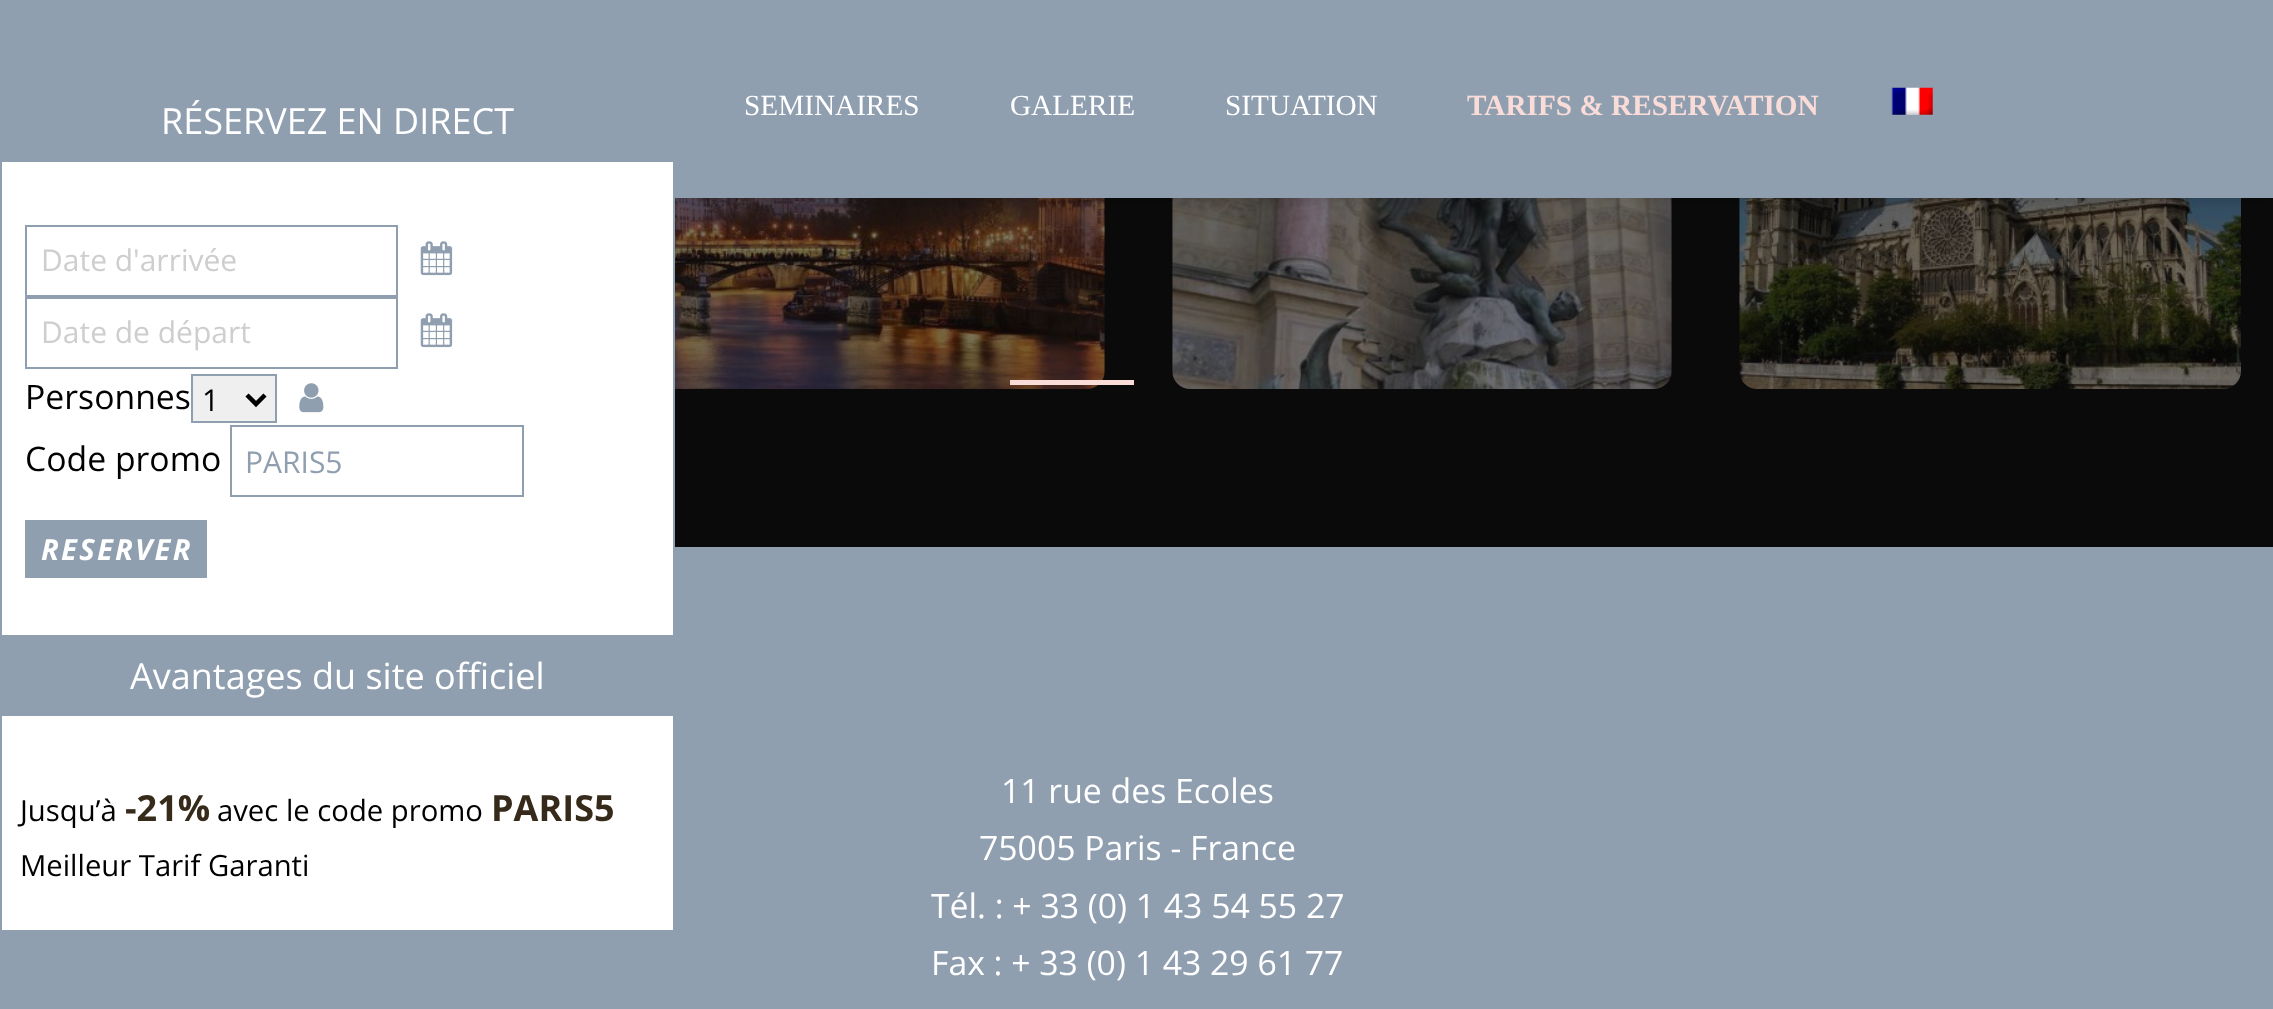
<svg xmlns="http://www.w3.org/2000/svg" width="2273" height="1009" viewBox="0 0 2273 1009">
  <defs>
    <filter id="blur1" x="-50%" y="-200%" width="200%" height="500%"><feGaussianBlur stdDeviation="7"/></filter>
  </defs>
  <rect width="100%" height="100%" fill="#8f9fb0"/>
  <rect x="675" y="198" width="1598" height="349" fill="#0a0a0a"/>
  <image x="675" y="198" width="430" height="191" href="img4.png"/>
  <image x="1172" y="198" width="500" height="191" href="img5.png"/>
  <image x="1739" y="198" width="502" height="191" href="img6.png"/>
  <rect x="0" y="2" width="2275" height="198" fill="#000000" fill-opacity="0.15" filter="url(#blur1)"/>
  <rect x="0" y="0" width="2273" height="198" fill="#8f9fb0"/>
  <rect x="2" y="162" width="671" height="768" fill="#ffffff"/>
  <rect x="1" y="80" width="673" height="851" fill="none" stroke="#8f9fb0" stroke-width="2"/>
  <text x="161" y="134" font-family="Open Sans" font-size="36" fill="#ffffff">RÉSERVEZ EN DIRECT</text>
  <rect x="26" y="226" width="371" height="70" fill="none" stroke="#8f9fb0" stroke-width="2"/>
  <text x="41" y="271" font-family="Open Sans" font-size="30" fill="#cecece">Date d'arrivée</text>
  <image x="420" y="241" width="33" height="35" href="img1.png"/>
  <rect x="26" y="298" width="371" height="70" fill="none" stroke="#8f9fb0" stroke-width="2"/>
  <text x="41" y="343" font-family="Open Sans" font-size="30" fill="#cecece">Date de départ</text>
  <image x="420" y="313" width="33" height="35" href="img1.png"/>
  <text x="25" y="409" font-family="Open Sans" font-size="33.75" fill="#000000">Personnes</text>
  <rect x="192" y="375" width="84" height="47" fill="#efefef" stroke="#8f9fb0" stroke-width="2"/>
  <path d="M247 395L256 404L265 395" fill="none" stroke="#000000" stroke-width="4.5"/>
  <text x="202" y="411" font-family="Open Sans" font-size="30" fill="#000000">1</text>
  <image x="299" y="383" width="25" height="30" href="img2.png"/>
  <text x="25" y="471" font-family="Open Sans" font-size="33.75" fill="#000000">Code promo</text>
  <rect x="231" y="426" width="292" height="70" fill="none" stroke="#8f9fb0" stroke-width="2"/>
  <text x="245" y="473" font-family="Open Sans" font-size="30" fill="#8f9fb0">PARIS5</text>
  <rect x="25" y="520" width="182" height="58" fill="#8f9fb0"/>
  <text x="41" y="560" font-family="Open Sans" font-size="29.25" font-weight="bold" font-style="italic" letter-spacing="2.25" fill="#ffffff">RESERVER</text>
  <rect x="2" y="635" width="671" height="81" fill="#8f9fb0"/>
  <text x="130" y="689" font-family="Open Sans" font-size="36" fill="#ffffff">Avantages du site officiel</text>
  <text x="20" y="821" font-family="Open Sans" font-size="29.25" fill="#000000">Jusqu’à</text>
  <text x="125" y="821" font-family="Open Sans" font-size="36" font-weight="bold" fill="#362a1b">-21%</text>
  <text x="217" y="821" font-family="Open Sans" font-size="29.25" fill="#000000">avec le code promo</text>
  <text x="491" y="821" font-family="Open Sans" font-size="36" font-weight="bold" fill="#362a1b">PARIS5</text>
  <text x="20" y="876" font-family="Open Sans" font-size="29.25" fill="#000000">Meilleur Tarif Garanti</text>
  <text x="744" y="115" font-family="Liberation Serif" font-size="29.25" fill="#ffffff">SEMINAIRES</text>
  <text x="1010" y="115" font-family="Liberation Serif" font-size="29.25" fill="#ffffff">GALERIE</text>
  <text x="1225" y="115" font-family="Liberation Serif" font-size="29.25" fill="#ffffff">SITUATION</text>
  <text x="1467" y="115" font-family="Liberation Serif" font-size="29.25" font-weight="bold" fill="#f9dcd8">TARIFS &amp; RESERVATION</text>
  <image x="1891" y="87" width="42" height="28" href="img3.png"/>
  <rect x="1010" y="380" width="124" height="5" fill="#f9dcd8"/>
  <text x="1001" y="803" font-family="Open Sans" font-size="33.75" fill="#ffffff">11 rue des Ecoles</text>
  <text x="979" y="860" font-family="Open Sans" font-size="33.75" fill="#ffffff">75005 Paris - France</text>
  <text x="931" y="918" font-family="Open Sans" font-size="33.75" fill="#ffffff">Tél. : + 33 (0) 1 43 54 55 27</text>
  <text x="931" y="975" font-family="Open Sans" font-size="33.75" fill="#ffffff">Fax : + 33 (0) 1 43 29 61 77</text>
</svg>
